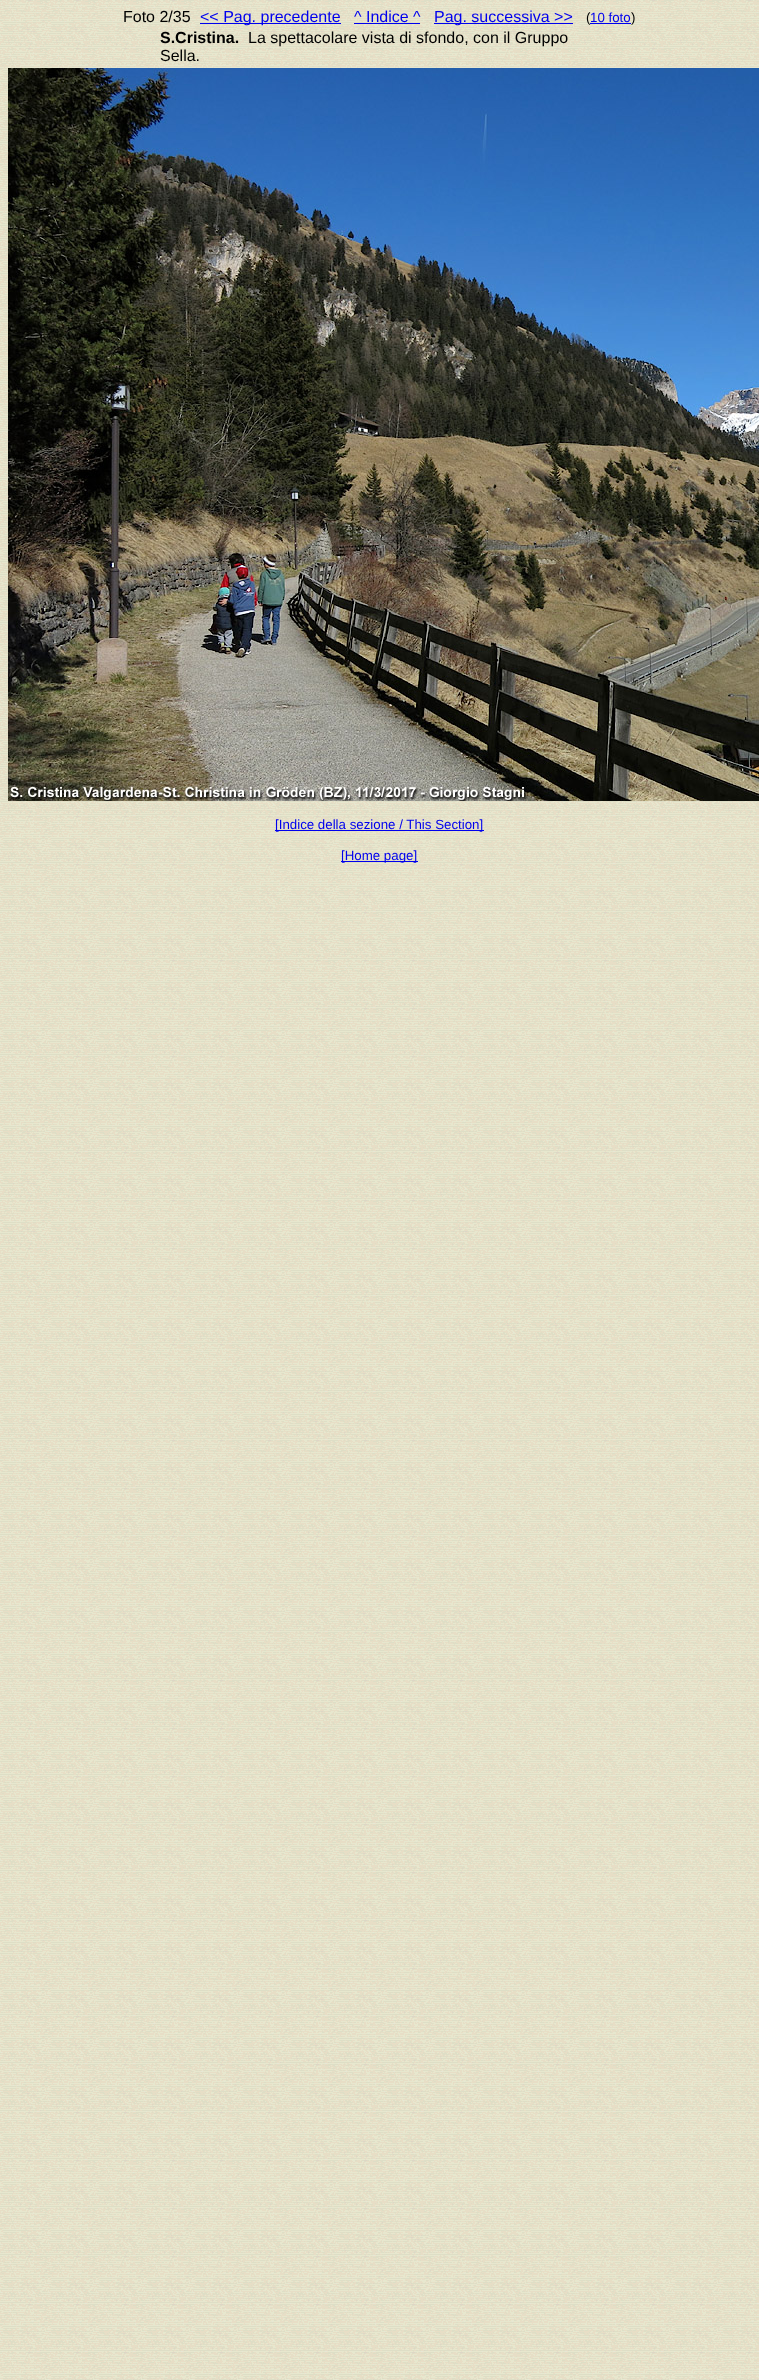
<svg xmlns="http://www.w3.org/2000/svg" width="759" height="2380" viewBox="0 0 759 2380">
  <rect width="100%" height="100%" fill="#ffffff"/>
  <image x="0" y="0" width="759" height="2380" href="img1.png"/>
  <text x="123" y="22" font-family="Liberation Sans" font-size="16" fill="#000000">Foto 2/35</text>
  <rect x="200" y="23" width="141" height="1" fill="#0000ee"/>
  <text x="200" y="22" font-family="Liberation Sans" font-size="16" fill="#0000ee">&lt;&lt; Pag. precedente</text>
  <text x="354" y="22" font-family="Liberation Sans" font-size="16" fill="#0000ee">^ Indice ^</text>
  <rect x="354" y="23" width="66" height="1" fill="#0000ee"/>
  <rect x="434" y="23" width="139" height="1" fill="#0000ee"/>
  <text x="434" y="22" font-family="Liberation Sans" font-size="16" fill="#0000ee">Pag. successiva &gt;&gt;</text>
  <text x="586" y="22" font-family="Liberation Sans" font-size="13.3" fill="#000000">(</text>
  <rect x="590" y="23" width="41" height="1" fill="#0000ee"/>
  <text x="590" y="22" font-family="Liberation Sans" font-size="13.3" fill="#0000ee">10 foto</text>
  <text x="631" y="22" font-family="Liberation Sans" font-size="13.3" fill="#000000">)</text>
  <text x="160" y="43" font-family="Liberation Sans" font-size="16" font-weight="bold" fill="#000000">S.Cristina.</text>
  <text x="248" y="43" font-family="Liberation Sans" font-size="16" fill="#000000">La spettacolare vista di sfondo, con il Gruppo</text>
  <text x="160" y="61" font-family="Liberation Sans" font-size="16" fill="#000000">Sella.</text>
  <image x="8" y="68" width="751" height="733" href="img2.png"/>
  <rect x="275" y="830" width="209" height="1" fill="#0000ee"/>
  <text x="275" y="829" font-family="Liberation Sans" font-size="13.3" fill="#0000ee">[Indice della sezione / This Section]</text>
  <rect x="341" y="861" width="77" height="1" fill="#0000ee"/>
  <text x="341" y="860" font-family="Liberation Sans" font-size="13.3" fill="#0000ee">[Home page]</text>
</svg>
